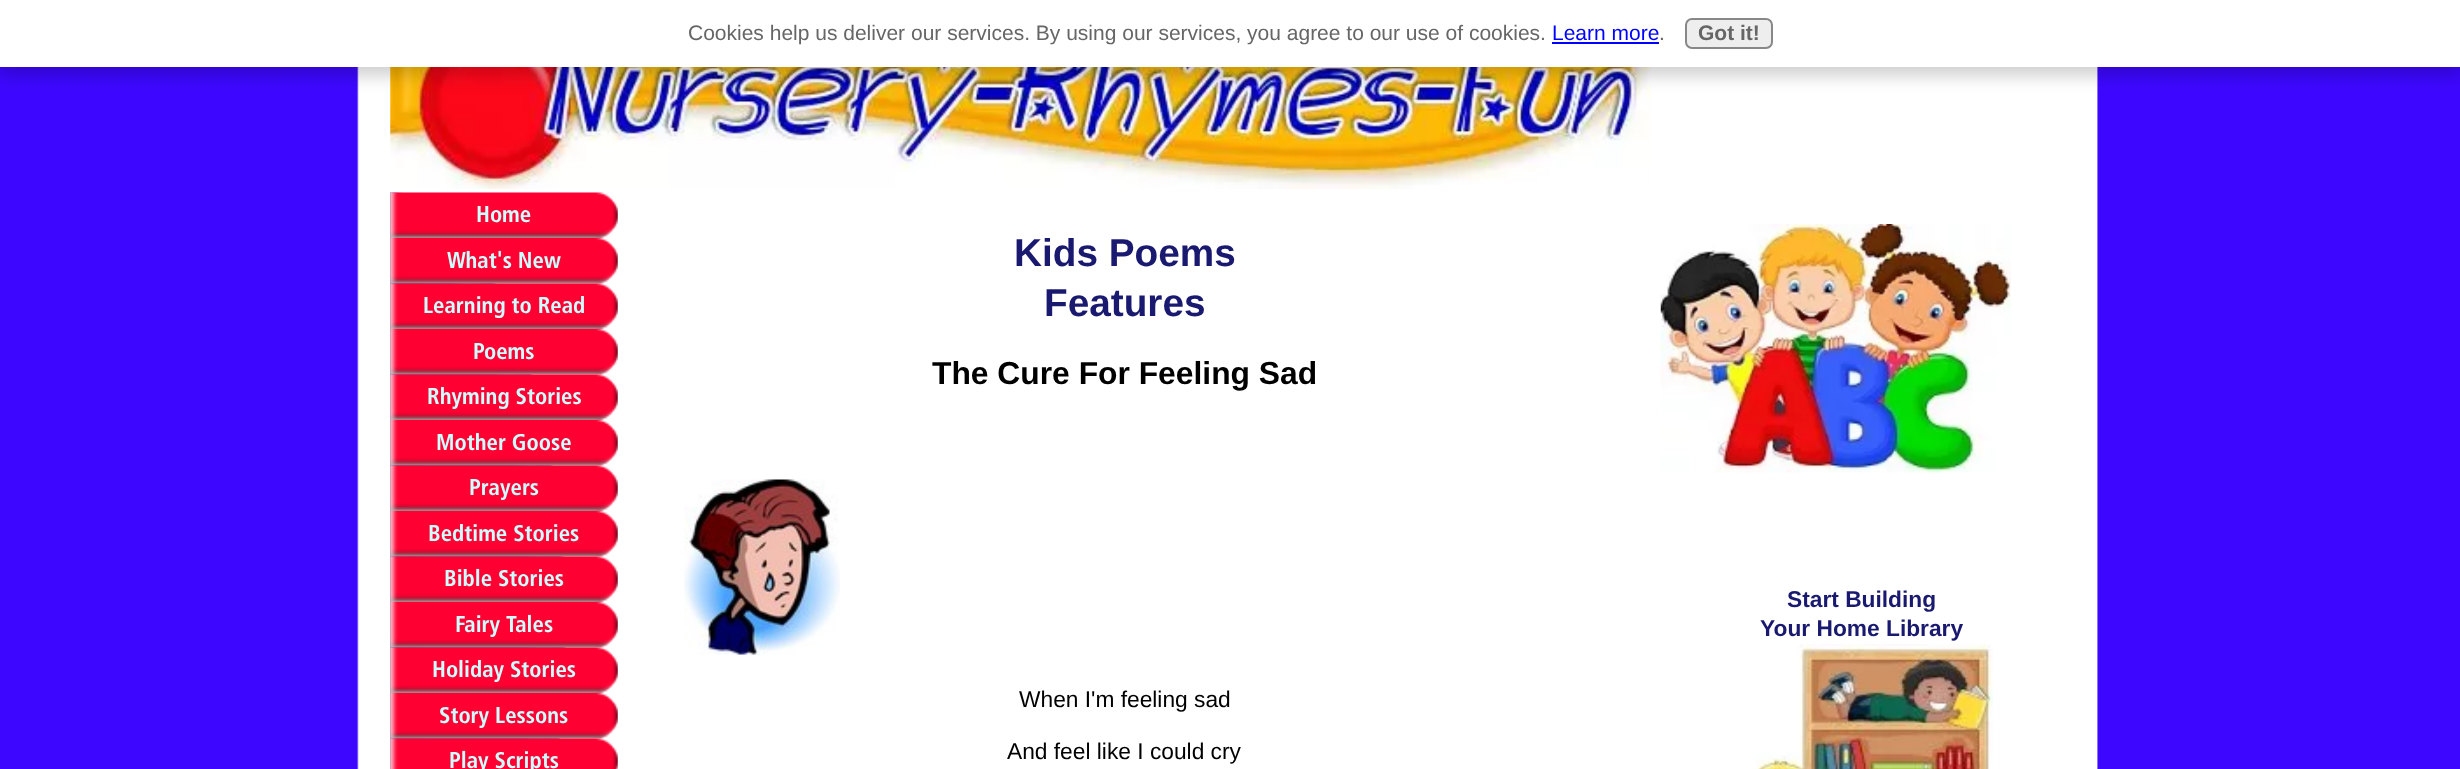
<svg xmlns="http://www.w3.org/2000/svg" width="2460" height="769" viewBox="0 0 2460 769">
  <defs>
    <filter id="blur1" x="-50%" y="-200%" width="200%" height="500%"><feGaussianBlur stdDeviation="9"/></filter>
  </defs>
  <rect width="100%" height="100%" fill="#ffffff"/>
  <image x="0" y="67" width="2460" height="702" href="img1.png"/>
  <image x="390" y="67" width="1261" height="122" href="img2.png"/>
  <rect x="-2" y="5" width="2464" height="70" fill="#000000" fill-opacity="0.2" filter="url(#blur1)"/>
  <rect x="0" y="0" width="2460" height="67" fill="#ffffff"/>
  <text x="688" y="40" font-family="Liberation Sans" font-size="21" fill="#666666">Cookies help us deliver our services. By using our services, you agree to our use of cookies.</text>
  <text x="1552" y="40" font-family="Liberation Sans" font-size="21" fill="#0000ff">Learn more</text>
  <rect x="1552" y="42" width="107" height="2" fill="#0000ff"/>
  <text x="1659" y="40" font-family="Liberation Sans" font-size="21" fill="#666666">.</text>
  <rect x="1686" y="19" width="86" height="29" rx="6" fill="#eeeeee" stroke="#888888" stroke-width="2"/>
  <text x="1698" y="40" font-family="Liberation Sans" font-size="21" font-weight="bold" fill="#666666">Got it!</text>
  <image x="390" y="192" width="207" height="577" href="img3.png"/>
  <image x="390" y="192" width="228" height="46" href="img4.png"/>
  <text x="476" y="222" font-family="Frutiger" font-size="22.75" fill="#ccffff">Home</text>
  <image x="390" y="238" width="228" height="46" href="img5.png"/>
  <text x="447" y="268" font-family="Frutiger" font-size="22.75" fill="#ccffff">What's New</text>
  <image x="390" y="283" width="228" height="46" href="img6.png"/>
  <text x="423" y="313" font-family="Frutiger" font-size="22.75" fill="#ccffff">Learning to Read</text>
  <image x="390" y="329" width="228" height="46" href="img7.png"/>
  <text x="473" y="359" font-family="Frutiger" font-size="22.75" fill="#ccffff">Poems</text>
  <image x="390" y="374" width="228" height="46" href="img8.png"/>
  <text x="427" y="404" font-family="Frutiger" font-size="22.75" fill="#ccffff">Rhyming Stories</text>
  <image x="390" y="420" width="228" height="46" href="img9.png"/>
  <text x="436" y="450" font-family="Frutiger" font-size="22.75" fill="#ccffff">Mother Goose</text>
  <image x="390" y="465" width="228" height="46" href="img10.png"/>
  <text x="469" y="495" font-family="Frutiger" font-size="22.75" fill="#ccffff">Prayers</text>
  <image x="390" y="511" width="228" height="46" href="img11.png"/>
  <text x="428" y="541" font-family="Frutiger" font-size="22.75" fill="#ccffff">Bedtime Stories</text>
  <image x="390" y="556" width="228" height="46" href="img12.png"/>
  <text x="444" y="586" font-family="Frutiger" font-size="22.75" fill="#ccffff">Bible Stories</text>
  <image x="390" y="602" width="228" height="46" href="img13.png"/>
  <text x="455" y="632" font-family="Frutiger" font-size="22.75" fill="#ccffff">Fairy Tales</text>
  <image x="390" y="647" width="228" height="46" href="img14.png"/>
  <text x="432" y="677" font-family="Frutiger" font-size="22.75" fill="#ccffff">Holiday Stories</text>
  <image x="390" y="693" width="228" height="46" href="img15.png"/>
  <text x="439" y="723" font-family="Frutiger" font-size="22.75" fill="#ccffff">Story Lessons</text>
  <image x="390" y="738" width="228" height="31" href="img16.png"/>
  <text x="449" y="768" font-family="Frutiger" font-size="22.75" fill="#ccffff">Play Scripts</text>
  <text x="1014" y="266" font-family="Liberation Sans" font-size="38.75" font-weight="bold" fill="#191970">Kids Poems</text>
  <text x="1044" y="316" font-family="Liberation Sans" font-size="38.75" font-weight="bold" fill="#191970">Features</text>
  <text x="932" y="384" font-family="Liberation Sans" font-size="31.8" font-weight="bold" fill="#000000">The Cure For Feeling Sad</text>
  <image x="684" y="479" width="156" height="176" href="img17.png"/>
  <text x="1019" y="707" font-family="Liberation Sans" font-size="22.75" fill="#000000">When I'm feeling sad</text>
  <text x="1007" y="759" font-family="Liberation Sans" font-size="22.75" fill="#000000">And feel like I could cry</text>
  <image x="1660" y="224" width="351" height="249" href="img18.png"/>
  <text x="1787" y="607" font-family="Liberation Sans" font-size="22.75" font-weight="bold" fill="#191970">Start Building</text>
  <text x="1760" y="636" font-family="Liberation Sans" font-size="22.75" font-weight="bold" fill="#191970">Your Home Library</text>
  <image x="1755" y="644" width="238" height="125" href="img19.png"/>
</svg>
